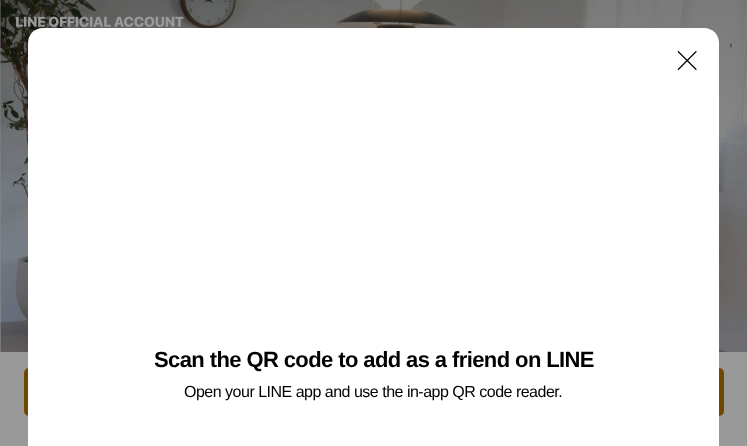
<svg xmlns="http://www.w3.org/2000/svg" width="747" height="446" viewBox="0 0 747 446">
  <defs>
    <linearGradient id="g1" gradientUnits="userSpaceOnUse" x1="374" y1="0" x2="374" y2="373"><stop offset="0" stop-color="#000000" stop-opacity="0.2"/><stop offset="1" stop-color="#000000" stop-opacity="0"/></linearGradient>
  </defs>
  <rect width="100%" height="100%" fill="#999999"/>
  <image x="0" y="0" width="747" height="352" href="img1.png"/>
  <rect x="0" y="0" width="747" height="333" fill="url(#g1)"/>
  <image x="16" y="16" width="168" height="11" href="img2.png"/>
  <rect x="24" y="368" width="700" height="48" rx="5" fill="#6f4902"/>
  <path d="M43 28H704C712.5 28 719 34.5 719 43V446H28V43C28 34.5 34.5 28 43 28Z" fill="#ffffff"/>
  <image x="677" y="51" width="20" height="20" href="img3.png"/>
  <text x="154" y="367" font-family="Liberation Sans" font-size="22" font-weight="bold" letter-spacing="-0.6" fill="#000000">Scan the QR code to add as a friend on LINE</text>
  <text x="184" y="397" font-family="Liberation Sans" font-size="16" letter-spacing="-0.5" fill="#000000">Open your LINE app and use the in-app QR code reader.</text>
</svg>
